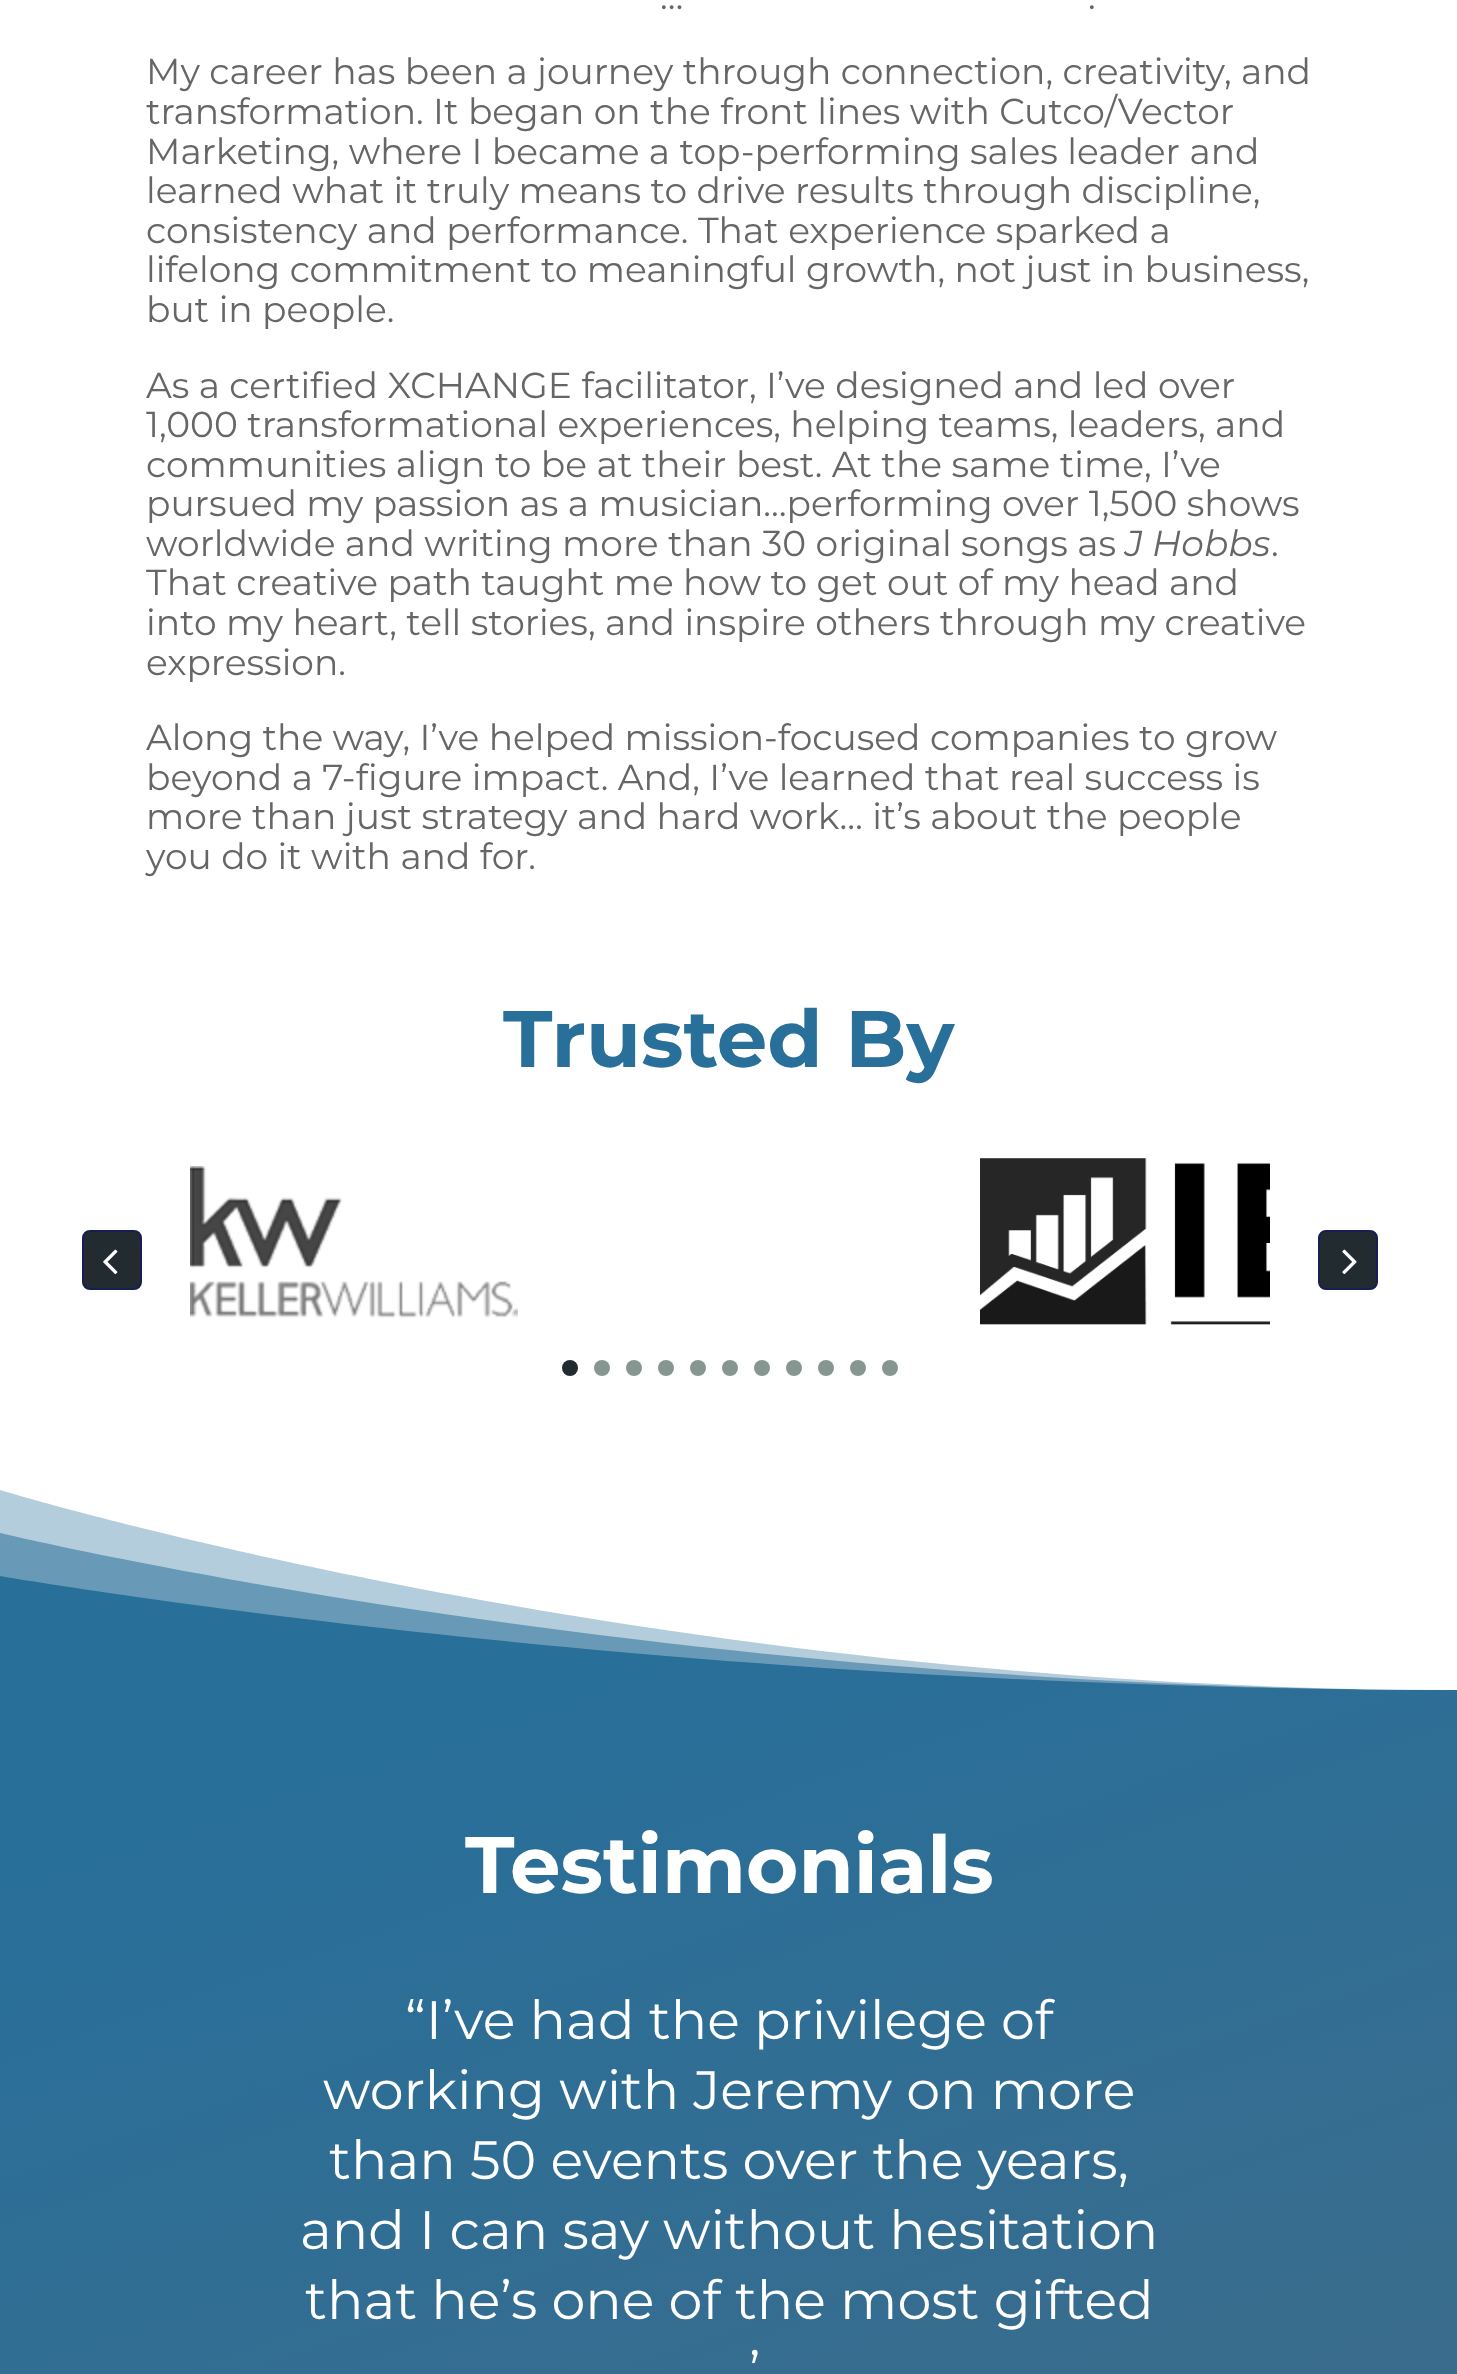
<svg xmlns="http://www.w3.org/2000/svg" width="1457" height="2374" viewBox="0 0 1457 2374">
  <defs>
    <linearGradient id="g1" gradientUnits="userSpaceOnUse" x1="116" y1="1450" x2="1342" y2="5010"><stop offset="0.1" stop-color="#286f9a"/><stop offset="1" stop-color="#6a6568"/></linearGradient>
  </defs>
  <rect width="100%" height="100%" fill="#ffffff"/>
  <text x="660" y="9" font-family="Montserrat" font-size="36" fill="#666666">…</text>
  <text x="1088" y="9" font-family="Montserrat" font-size="36" fill="#666666">.</text>
  <text x="146" y="84" font-family="Montserrat" font-size="36" fill="#666666">My career has been a journey through connection, creativity, and</text>
  <text x="146" y="124" font-family="Montserrat" font-size="36" fill="#666666">transformation. It began on the front lines with Cutco/Vector</text>
  <text x="146" y="164" font-family="Montserrat" font-size="36" fill="#666666">Marketing, where I became a top-performing sales leader and</text>
  <text x="146" y="203" font-family="Montserrat" font-size="36" fill="#666666">learned what it truly means to drive results through discipline,</text>
  <text x="146" y="243" font-family="Montserrat" font-size="36" fill="#666666">consistency and performance. That experience sparked a</text>
  <text x="146" y="282" font-family="Montserrat" font-size="36" fill="#666666">lifelong commitment to meaningful growth, not just in business,</text>
  <text x="146" y="322" font-family="Montserrat" font-size="36" fill="#666666">but in people.</text>
  <text x="146" y="398" font-family="Montserrat" font-size="36" fill="#666666">As a certified XCHANGE facilitator, I’ve designed and led over</text>
  <text x="146" y="437" font-family="Montserrat" font-size="36" fill="#666666">1,000 transformational experiences, helping teams, leaders, and</text>
  <text x="146" y="477" font-family="Montserrat" font-size="36" fill="#666666">communities align to be at their best. At the same time, I’ve</text>
  <text x="146" y="516" font-family="Montserrat" font-size="36" fill="#666666">pursued my passion as a musician…performing over 1,500 shows</text>
  <text x="146" y="556" font-family="Montserrat" font-size="36" fill="#666666">worldwide and writing more than 30 original songs as</text>
  <text x="1125" y="556" font-family="Montserrat" font-size="36" font-style="italic" fill="#666666">J Hobbs</text>
  <text x="1271" y="556" font-family="Montserrat" font-size="36" fill="#666666">.</text>
  <text x="146" y="595" font-family="Montserrat" font-size="36" fill="#666666">That creative path taught me how to get out of my head and</text>
  <text x="146" y="635" font-family="Montserrat" font-size="36" fill="#666666">into my heart, tell stories, and inspire others through my creative</text>
  <text x="146" y="675" font-family="Montserrat" font-size="36" fill="#666666">expression.</text>
  <text x="146" y="750" font-family="Montserrat" font-size="36" fill="#666666">Along the way, I’ve helped mission-focused companies to grow</text>
  <text x="146" y="790" font-family="Montserrat" font-size="36" fill="#666666">beyond a 7-figure impact. And, I’ve learned that real success is</text>
  <text x="146" y="829" font-family="Montserrat" font-size="36" fill="#666666">more than just strategy and hard work… it’s about the people</text>
  <text x="146" y="869" font-family="Montserrat" font-size="36" fill="#666666">you do it with and for.</text>
  <text x="503" y="1067" font-family="Montserrat" font-size="80" font-weight="bold" fill="#286f9a">Trusted By</text>
  <image x="190" y="1166" width="328" height="152" href="img1.png"/>
  <image x="980" y="1158" width="290" height="167" href="img2.png"/>
  <circle cx="570" cy="1368" r="8" fill="#222b30"/>
  <circle cx="602" cy="1368" r="8" fill="#869791"/>
  <circle cx="634" cy="1368" r="8" fill="#869791"/>
  <circle cx="666" cy="1368" r="8" fill="#869791"/>
  <circle cx="698" cy="1368" r="8" fill="#869791"/>
  <circle cx="730" cy="1368" r="8" fill="#869791"/>
  <circle cx="762" cy="1368" r="8" fill="#869791"/>
  <circle cx="794" cy="1368" r="8" fill="#869791"/>
  <circle cx="826" cy="1368" r="8" fill="#869791"/>
  <circle cx="858" cy="1368" r="8" fill="#869791"/>
  <circle cx="890" cy="1368" r="8" fill="#869791"/>
  <rect x="83" y="1231" width="58" height="58" rx="7" fill="#222b30" stroke="#161e54" stroke-width="2"/>
  <image x="103" y="1249" width="15" height="26" href="img3.png"/>
  <rect x="1319" y="1231" width="58" height="58" rx="7" fill="#222b30" stroke="#161e54" stroke-width="2"/>
  <image x="1342" y="1249" width="15" height="26" href="img4.png"/>
  <rect x="0" y="1490" width="1457" height="884" fill="url(#g1)"/>
  <path d="M0 1490V1576C0 1576 653 1690 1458 1690V1490Z" fill="#ffffff" fill-opacity="0.3"/>
  <path d="M0 1490V1533C0 1533 653 1690 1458 1690V1490Z" fill="#ffffff" fill-opacity="0.5"/>
  <path d="M0 1490C0 1490 653 1690 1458 1690V1490Z" fill="#ffffff"/>
  <text x="465" y="1893" font-family="Montserrat" font-size="80" font-weight="bold" fill="#ffffff">Testimonials</text>
  <text x="405" y="2039" font-family="Montserrat" font-size="54" fill="#ffffff">“I’ve had the privilege of</text>
  <text x="323" y="2109" font-family="Montserrat" font-size="54" fill="#ffffff">working with Jeremy on more</text>
  <text x="329" y="2179" font-family="Montserrat" font-size="54" fill="#ffffff">than 50 events over the years,</text>
  <text x="300" y="2249" font-family="Montserrat" font-size="54" fill="#ffffff">and I can say without hesitation</text>
  <text x="305" y="2319" font-family="Montserrat" font-size="54" fill="#ffffff">that he’s one of the most gifted</text>
  <text x="749" y="2390" font-family="Montserrat" font-size="54" fill="#ffffff">’</text>
</svg>
